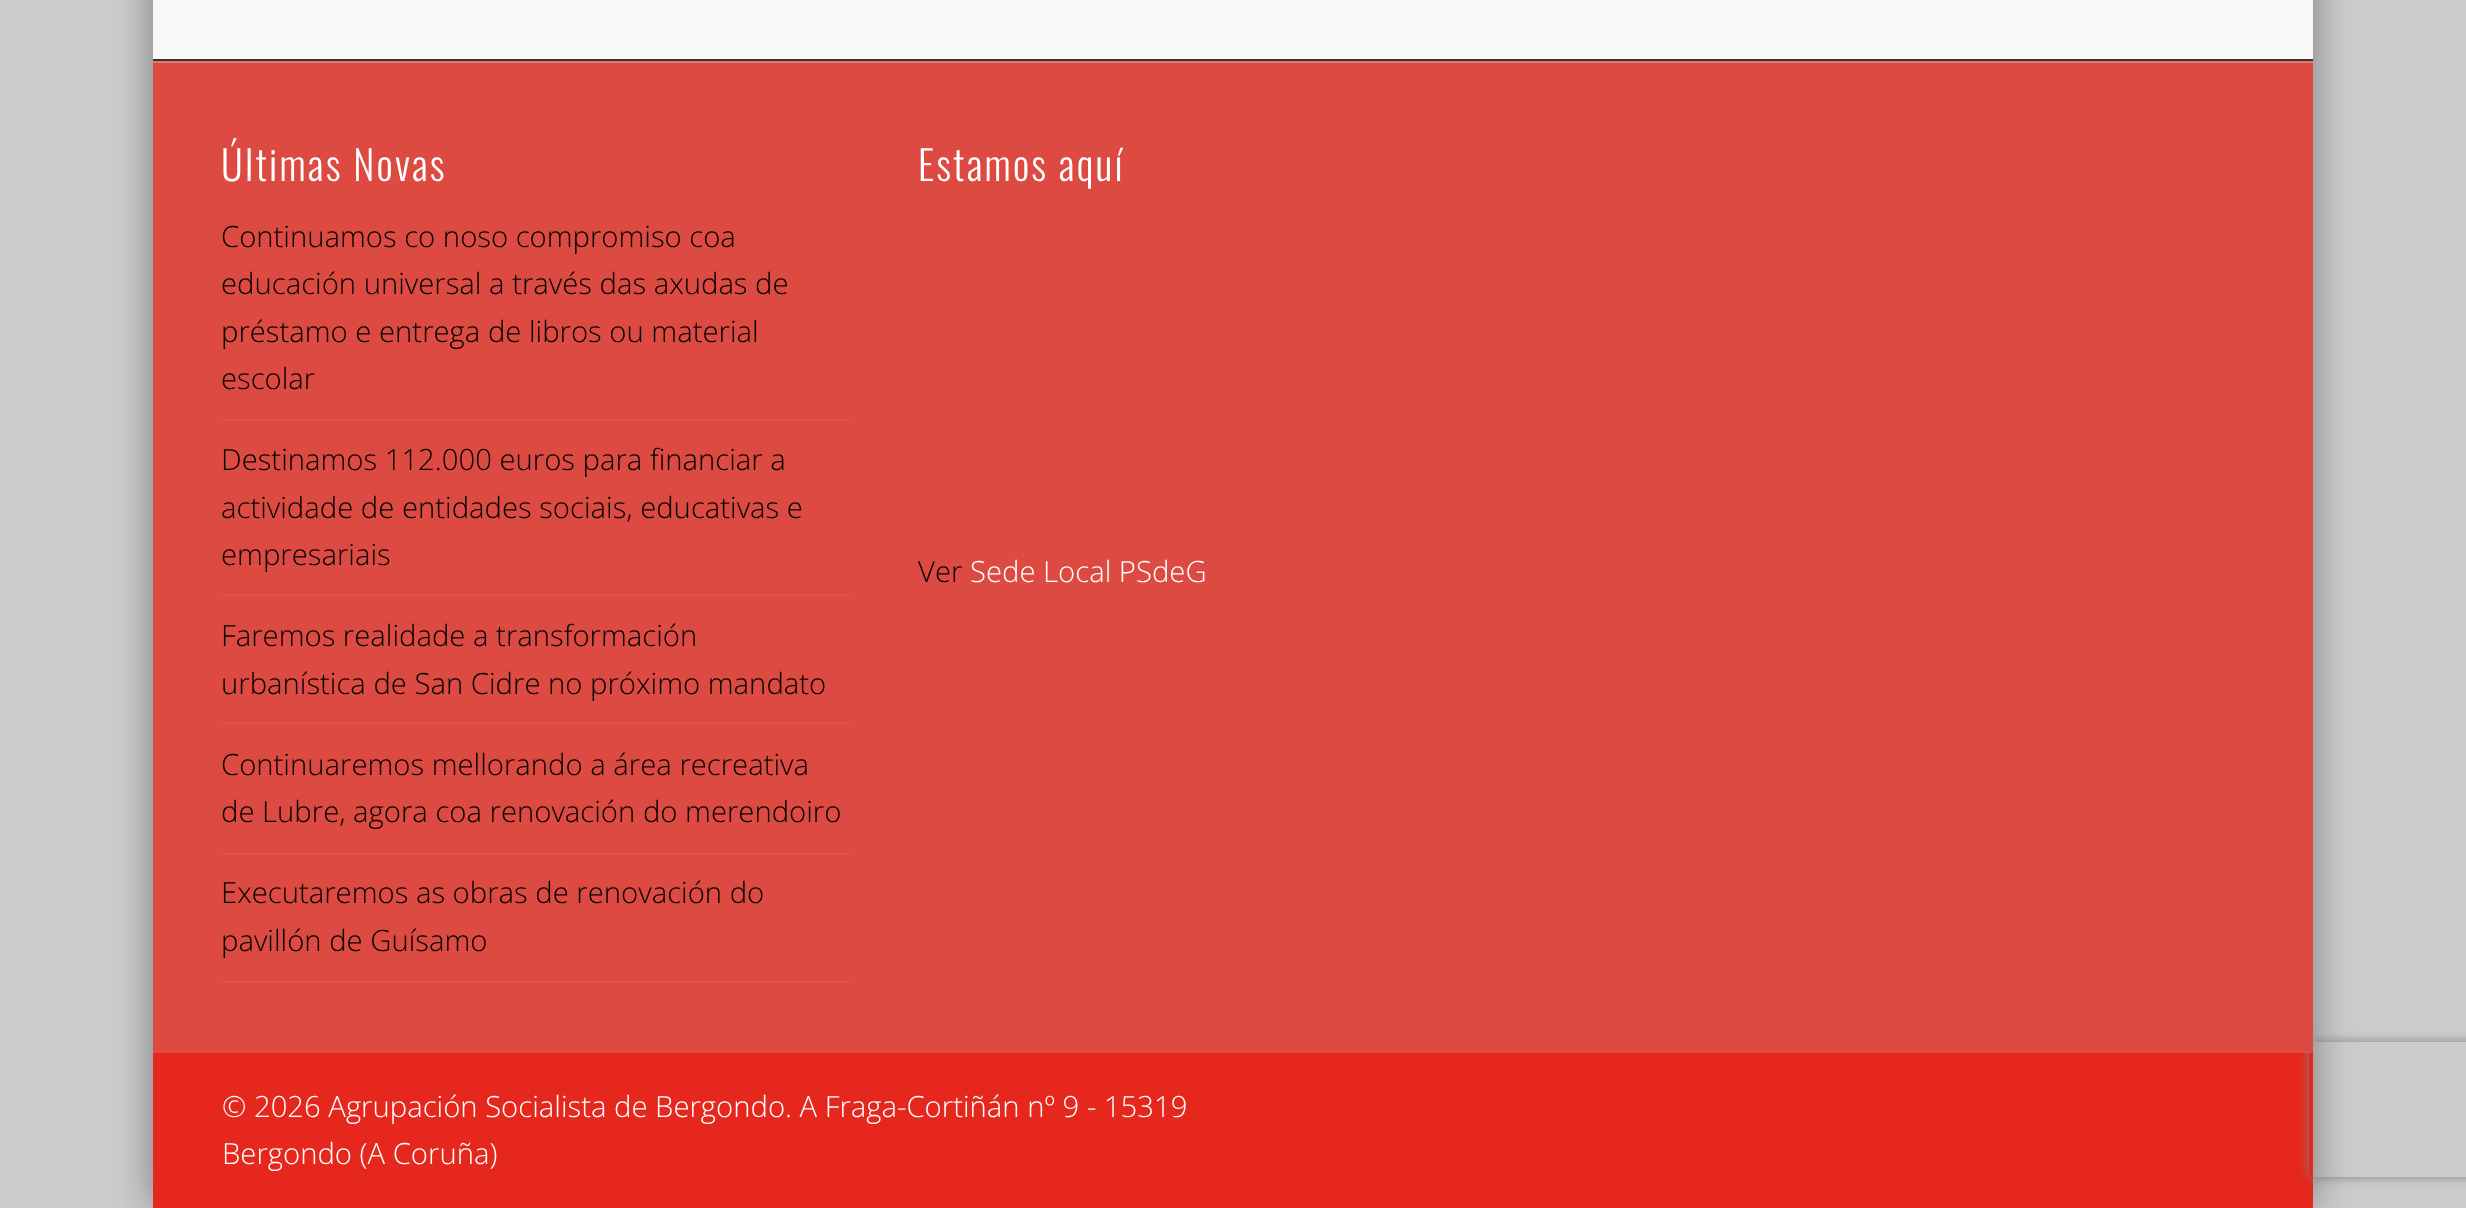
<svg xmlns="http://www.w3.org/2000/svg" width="2466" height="1208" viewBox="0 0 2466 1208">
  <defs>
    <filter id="blur1" x="-50%" y="-200%" width="200%" height="500%"><feGaussianBlur stdDeviation="20"/></filter>
    <clipPath id="clip1"><path d="M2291 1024H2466V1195H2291ZM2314 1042H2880C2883 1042 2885 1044 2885 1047V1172C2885 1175 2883 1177 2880 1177H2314C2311 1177 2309 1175 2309 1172V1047C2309 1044 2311 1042 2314 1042Z" clip-rule="evenodd"/></clipPath>
    <filter id="blur2" x="-50%" y="-200%" width="200%" height="500%"><feGaussianBlur stdDeviation="5.5"/></filter>
  </defs>
  <rect width="100%" height="100%" fill="#cccccc"/>
  <rect x="153" y="-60" width="2160" height="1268" fill="#000000" fill-opacity="0.4" filter="url(#blur1)"/>
  <rect x="153" y="0" width="2160" height="59" fill="#f8f8f8"/>
  <rect x="153" y="59" width="2160" height="2" fill="#343434"/>
  <rect x="153" y="1053" width="2160" height="155" fill="#e5271d"/>
  <rect x="153" y="1051" width="2160" height="2" fill="#e9463e"/>
  <g clip-path="url(#clip1)">
    <rect x="2309" y="1042" width="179" height="135" rx="5" fill="#808080" filter="url(#blur2)"/>
  </g>
  <rect x="153" y="63" width="2160" height="988" fill="#dd4a42"/>
  <rect x="153" y="61" width="2160" height="2" fill="#e5756e"/>
  <text x="221" y="181" font-family="Oswald" font-size="40.5" font-weight="300" letter-spacing="2.25" fill="#ffffff">Últimas Novas</text>
  <rect x="221" y="419" width="630" height="2" fill="#df534b"/>
  <text x="221" y="247" font-family="Open Sans" font-size="29.25" font-weight="300" fill="#000000">Continuamos co noso compromiso coa</text>
  <text x="221" y="294" font-family="Open Sans" font-size="29.25" font-weight="300" fill="#000000">educación universal a través das axudas de</text>
  <text x="221" y="342" font-family="Open Sans" font-size="29.25" font-weight="300" fill="#000000">préstamo e entrega de libros ou material</text>
  <text x="221" y="389" font-family="Open Sans" font-size="29.25" font-weight="300" fill="#000000">escolar</text>
  <rect x="221" y="594" width="630" height="2" fill="#df534b"/>
  <text x="221" y="470" font-family="Open Sans" font-size="29.25" font-weight="300" fill="#000000">Destinamos 112.000 euros para financiar a</text>
  <text x="221" y="518" font-family="Open Sans" font-size="29.25" font-weight="300" fill="#000000">actividade de entidades sociais, educativas e</text>
  <text x="221" y="565" font-family="Open Sans" font-size="29.25" font-weight="300" fill="#000000">empresariais</text>
  <rect x="221" y="722" width="630" height="2" fill="#df534b"/>
  <text x="221" y="646" font-family="Open Sans" font-size="29.25" font-weight="300" fill="#000000">Faremos realidade a transformación</text>
  <text x="221" y="694" font-family="Open Sans" font-size="29.25" font-weight="300" fill="#000000">urbanística de San Cidre no próximo mandato</text>
  <rect x="221" y="853" width="630" height="2" fill="#df534b"/>
  <text x="221" y="775" font-family="Open Sans" font-size="29.25" font-weight="300" fill="#000000">Continuaremos mellorando a área recreativa</text>
  <text x="221" y="822" font-family="Open Sans" font-size="29.25" font-weight="300" fill="#000000">de Lubre, agora coa renovación do merendoiro</text>
  <rect x="221" y="981" width="630" height="2" fill="#df534b"/>
  <text x="221" y="903" font-family="Open Sans" font-size="29.25" font-weight="300" fill="#000000">Executaremos as obras de renovación do</text>
  <text x="221" y="951" font-family="Open Sans" font-size="29.25" font-weight="300" fill="#000000">pavillón de Guísamo</text>
  <text x="918" y="181" font-family="Oswald" font-size="40.5" font-weight="300" letter-spacing="2.25" fill="#ffffff">Estamos aquí</text>
  <text x="918" y="582" font-family="Open Sans" font-size="29.25" font-weight="300" fill="#000000">Ver</text>
  <text x="970" y="582" font-family="Open Sans" font-size="29.25" font-weight="300" fill="#ffffff">Sede Local PSdeG</text>
  <text x="222" y="1117" font-family="Open Sans" font-size="29.25" font-weight="300" fill="#ffffff">© 2026 Agrupación Socialista de Bergondo. A Fraga-Cortiñán nº 9 - 15319</text>
  <text x="222" y="1164" font-family="Open Sans" font-size="29.25" font-weight="300" fill="#ffffff">Bergondo (A Coruña)</text>
</svg>
